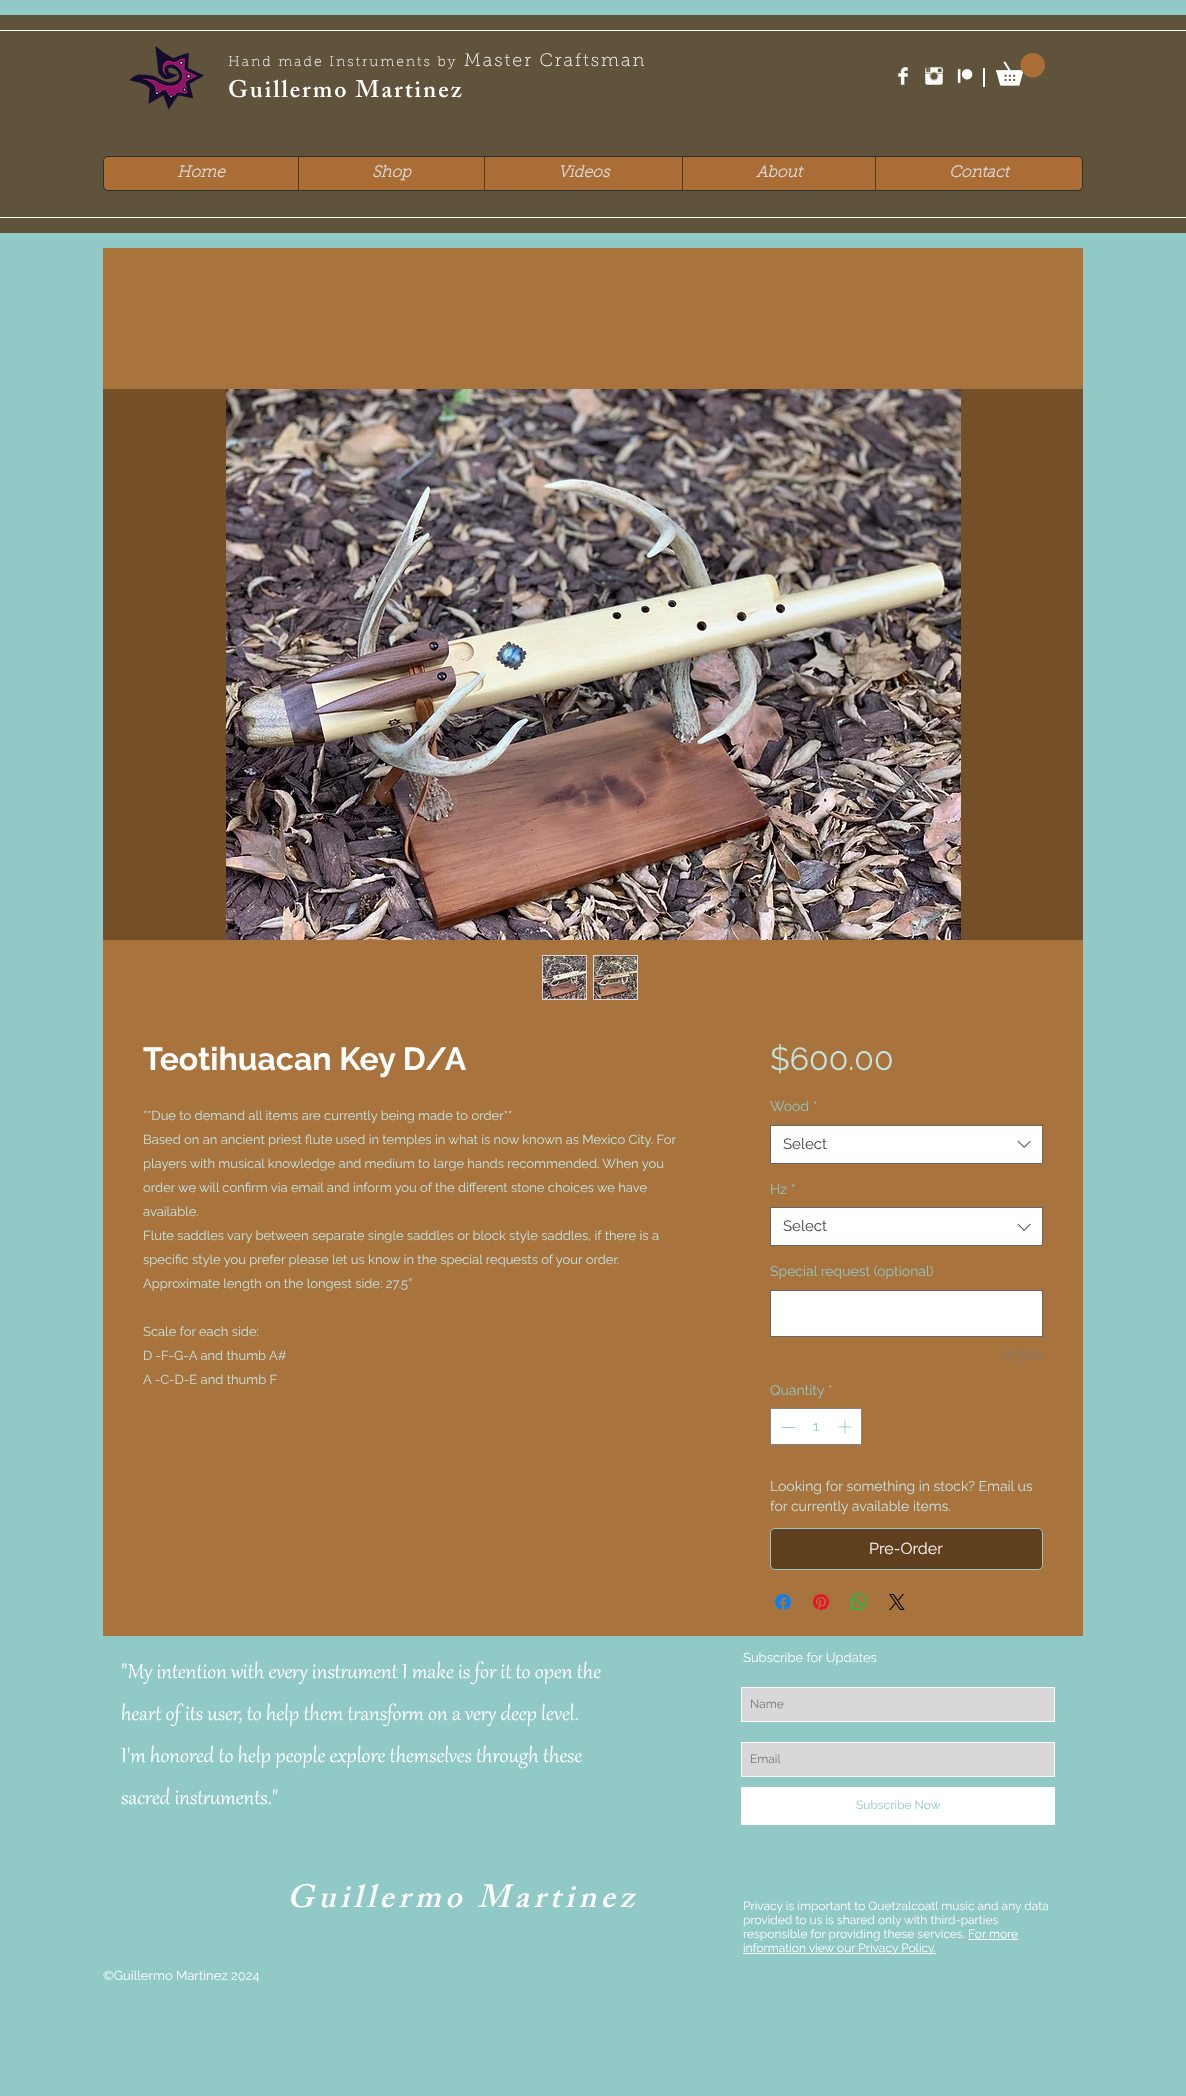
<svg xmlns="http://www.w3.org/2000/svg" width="1186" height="2096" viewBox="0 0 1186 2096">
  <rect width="100%" height="100%" fill="#91c9c6"/>
  <rect x="0" y="15" width="1186" height="218" fill="#60533b"/>
  <rect x="0" y="30" width="1186" height="1" fill="#ffffff"/>
  <rect x="0" y="217" width="1186" height="1" fill="#ffffff"/>
  <image x="129" y="46" width="75" height="64" href="img1.png"/>
  <text x="228" y="66" font-family="'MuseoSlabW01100'" font-size="14" font-weight="100" letter-spacing="2" fill="#ffffff">Hand made Instruments by</text>
  <text x="464" y="66" font-family="'MuseoSlabW01100'" font-size="18" font-weight="100" letter-spacing="2" fill="#ffffff">Master Craftsman</text>
  <text x="228" y="97" font-family="'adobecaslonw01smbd'" font-size="24" font-weight="600" letter-spacing="2" fill="#ffffff">Guillermo Martinez</text>
  <image x="898" y="67" width="10" height="18" href="img2.png"/>
  <image x="925" y="67" width="18" height="18" href="img3.png"/>
  <image x="957" y="68" width="16" height="16" href="img4.png"/>
  <rect x="983" y="68" width="2" height="19" fill="#ffffff"/>
  <image x="996" y="53" width="49" height="33" href="img5.png"/>
  <rect x="103.5" y="156.5" width="979" height="34" rx="4.5" fill="#aa6d35" stroke="#303030"/>
  <text x="177" y="177" font-family="'MuseoSlabW01100'" font-size="16" font-weight="bold" font-style="italic" fill="#d8d8d8">Home</text>
  <rect x="298" y="157" width="1" height="33" fill="#55371a"/>
  <text x="372" y="177" font-family="'MuseoSlabW01100'" font-size="16" font-weight="bold" font-style="italic" fill="#d8d8d8">Shop</text>
  <rect x="484" y="157" width="1" height="33" fill="#55371a"/>
  <text x="558" y="177" font-family="'MuseoSlabW01100'" font-size="16" font-weight="bold" font-style="italic" fill="#d8d8d8">Videos</text>
  <rect x="682" y="157" width="1" height="33" fill="#55371a"/>
  <text x="756" y="177" font-family="'MuseoSlabW01100'" font-size="16" font-weight="bold" font-style="italic" fill="#d8d8d8">About</text>
  <rect x="875" y="157" width="1" height="33" fill="#55371a"/>
  <text x="949" y="177" font-family="'MuseoSlabW01100'" font-size="16" font-weight="bold" font-style="italic" fill="#d8d8d8">Contact</text>
  <rect x="103" y="248" width="980" height="1388" fill="#a8733d"/>
  <rect x="103" y="389" width="980" height="551" fill="#754f27"/>
  <image x="226" y="389" width="735" height="551" href="img6.png"/>
  <rect x="542" y="955" width="45" height="45" fill="#d8d8d8"/>
  <image x="543" y="956" width="43" height="43" href="img7.png"/>
  <rect x="593" y="955" width="45" height="45" fill="#d8d8d8"/>
  <image x="594" y="956" width="43" height="43" href="img8.png"/>
  <text x="143" y="1070" font-family="Raleway" font-size="32" font-weight="bold" fill="#ffffff">Teotihuacan Key D/A</text>
  <text x="143" y="1120" font-family="Raleway" font-size="13" fill="#c4e4e2">**Due to demand all items are currently being made to order**</text>
  <text x="143" y="1144" font-family="Raleway" font-size="13" fill="#c4e4e2">Based on an ancient priest flute used in temples in what is now known as Mexico City. For</text>
  <text x="143" y="1168" font-family="Raleway" font-size="13" fill="#c4e4e2">players with musical knowledge and medium to large hands recommended. When you</text>
  <text x="143" y="1192" font-family="Raleway" font-size="13" fill="#c4e4e2">order we will confirm via email and inform you of the different stone choices we have</text>
  <text x="143" y="1216" font-family="Raleway" font-size="13" fill="#c4e4e2">available.</text>
  <text x="143" y="1240" font-family="Raleway" font-size="13" fill="#c4e4e2">Flute saddles vary between separate single saddles or block style saddles, if there is a</text>
  <text x="143" y="1264" font-family="Raleway" font-size="13" fill="#c4e4e2">specific style you prefer please let us know in the special requests of your order.</text>
  <text x="143" y="1288" font-family="Raleway" font-size="13" fill="#c4e4e2">Approximate length on the longest side: 27.5”</text>
  <text x="143" y="1336" font-family="Raleway" font-size="13" fill="#c4e4e2">Scale for each side:</text>
  <text x="143" y="1360" font-family="Raleway" font-size="13" fill="#c4e4e2">D -F-G-A and thumb A#</text>
  <text x="143" y="1384" font-family="Raleway" font-size="13" fill="#c4e4e2">A -C-D-E and thumb F</text>
  <text x="770" y="1070" font-family="Raleway" font-size="32" fill="#c4e4e2">$600.00</text>
  <text x="770" y="1111" font-family="Raleway" font-size="14" fill="#91c9c6">Wood</text>
  <text x="813" y="1111" font-family="Raleway" font-size="14" fill="#91c9c6">*</text>
  <rect x="770.5" y="1125.5" width="272" height="38" fill="#ffffff" stroke="#666666"/>
  <text x="783" y="1149" font-family="Raleway" font-size="15" fill="#444444">Select</text>
  <image x="1017" y="1140" width="14" height="8" href="img9.png"/>
  <text x="770" y="1194" font-family="Raleway" font-size="14" fill="#91c9c6">Hz</text>
  <text x="791" y="1194" font-family="Raleway" font-size="14" fill="#91c9c6">*</text>
  <rect x="770.5" y="1207.5" width="272" height="38" fill="#ffffff" stroke="#666666"/>
  <text x="783" y="1231" font-family="Raleway" font-size="15" fill="#444444">Select</text>
  <image x="1017" y="1223" width="14" height="8" href="img9.png"/>
  <text x="770" y="1276" font-family="Raleway" font-size="14" fill="#91c9c6">Special request (optional)</text>
  <rect x="770.5" y="1290.5" width="272" height="46" fill="#ffffff" stroke="#666666"/>
  <text x="1002" y="1359" font-family="Raleway" font-size="14" fill="#797979">0/500</text>
  <text x="770" y="1395" font-family="Raleway" font-size="14" fill="#91c9c6">Quantity</text>
  <text x="828" y="1395" font-family="Raleway" font-size="14" fill="#91c9c6">*</text>
  <rect x="770.5" y="1408.5" width="91" height="36" fill="#ffffff" stroke="#838383"/>
  <rect x="782" y="1427" width="13" height="1" fill="#91c9c6"/>
  <text x="813" y="1431" font-family="Raleway" font-size="14" fill="#91c9c6">1</text>
  <image x="838" y="1420" width="14" height="14" href="img10.png"/>
  <text x="770" y="1491" font-family="Raleway" font-size="14" fill="#c4e4e2">Looking for something in stock? Email us</text>
  <text x="770" y="1511" font-family="Raleway" font-size="14" fill="#c4e4e2">for currently available items.</text>
  <rect x="770.5" y="1528.5" width="272" height="41" rx="4.5" fill="#603f1f" stroke="#91c9c6"/>
  <text x="869" y="1554" font-family="Raleway" font-size="16" fill="#ffffff">Pre-Order</text>
  <image x="775" y="1594" width="16" height="16" href="img11.png"/>
  <image x="813" y="1594" width="16" height="16" href="img12.png"/>
  <image x="850" y="1593" width="17" height="17" href="img13.png"/>
  <image x="889" y="1594" width="16" height="16" href="img14.png"/>
  <text x="121" y="1678" font-family="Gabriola" font-size="25" fill="#ffffff">"My intention with every instrument I make is for it to open the</text>
  <text x="121" y="1720" font-family="Gabriola" font-size="25" fill="#ffffff">heart of its user, to help them transform on a very deep level.</text>
  <text x="121" y="1762" font-family="Gabriola" font-size="25" fill="#ffffff">I'm honored to help people explore themselves through these</text>
  <text x="121" y="1804" font-family="Gabriola" font-size="25" fill="#ffffff">sacred instruments."</text>
  <text x="743" y="1662" font-family="Raleway" font-size="13" fill="#ffffff">Subscribe for Updates</text>
  <rect x="741.5" y="1687.5" width="313" height="34" fill="#d8d8d8" stroke="#ffffff"/>
  <text x="750" y="1708" font-family="Raleway" font-size="12" fill="#797979">Name</text>
  <rect x="741.5" y="1742.5" width="313" height="34" fill="#d8d8d8" stroke="#ffffff"/>
  <text x="750" y="1763" font-family="Raleway" font-size="12" fill="#797979">Email</text>
  <rect x="741" y="1787" width="314" height="38" fill="#ffffff"/>
  <text x="856" y="1809" font-family="Raleway" font-size="12" fill="#91c9c6">Subscribe Now</text>
  <text x="287" y="1907" font-family="'adobecaslonw01smbd'" font-size="32" font-weight="600" font-style="italic" letter-spacing="4.75" fill="#ffffff">Guillermo Martinez</text>
  <text x="743" y="1910" font-family="Raleway" font-size="12" fill="#ffffff">Privacy is important to Quetzalcoatl music and any data</text>
  <text x="743" y="1924" font-family="Raleway" font-size="12" fill="#ffffff">provided to us is shared only with third-parties</text>
  <text x="743" y="1938" font-family="Raleway" font-size="12" fill="#ffffff">responsible for providing these services. For more</text>
  <rect x="968" y="1939" width="50" height="1" fill="#ffffff"/>
  <rect x="743" y="1953" width="193" height="1" fill="#ffffff"/>
  <text x="743" y="1952" font-family="Raleway" font-size="12" fill="#ffffff">information view our Privacy Policy.</text>
  <text x="103" y="1980" font-family="Raleway" font-size="13" fill="#ffffff">©Guillermo Martinez 2024</text>
</svg>
